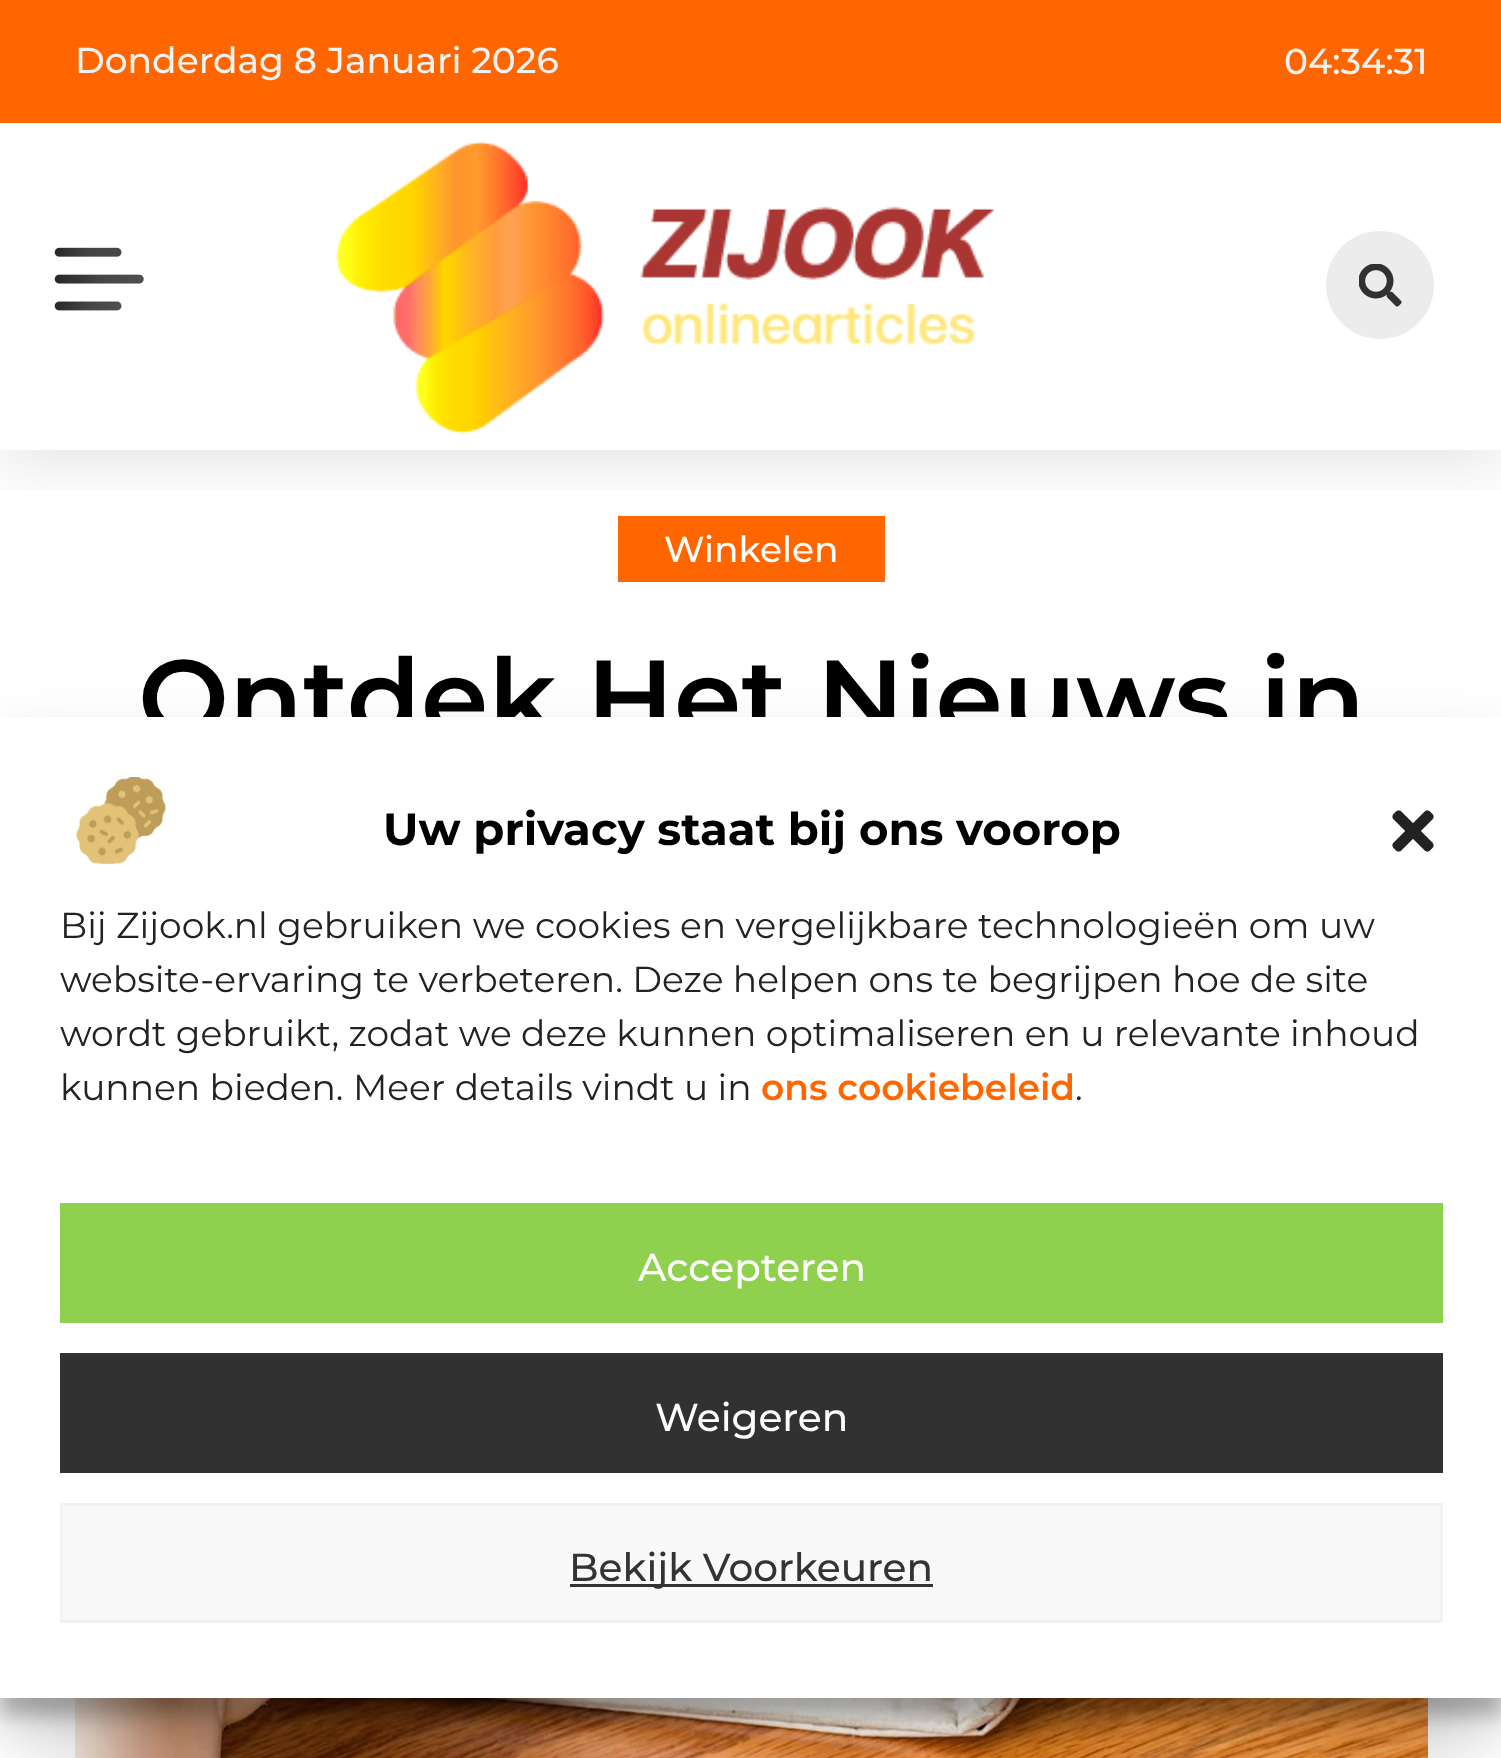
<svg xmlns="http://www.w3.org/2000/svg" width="1501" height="1758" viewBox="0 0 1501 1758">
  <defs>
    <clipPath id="clip1"><rect x="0" y="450" width="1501" height="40"/></clipPath>
    <filter id="blur1" x="-50%" y="-200%" width="200%" height="500%"><feGaussianBlur stdDeviation="30"/></filter>
    <filter id="blur2" x="-50%" y="-200%" width="200%" height="500%"><feGaussianBlur stdDeviation="60"/></filter>
    <filter id="blur3" x="-50%" y="-200%" width="200%" height="500%"><feGaussianBlur stdDeviation="9"/></filter>
  </defs>
  <rect width="100%" height="100%" fill="#ffffff"/>
  <rect x="618" y="516" width="267" height="66" fill="#ff6600"/>
  <g clip-path="url(#clip1)">
    <rect x="0" y="15" width="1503" height="450" fill="#000000" fill-opacity="0.1" filter="url(#blur1)"/>
  </g>
  <rect x="0" y="0" width="1501" height="123" fill="#ff6600"/>
  <text x="75" y="73" font-family="Montserrat" font-size="36" font-weight="500" fill="#f2f2f2">Donderdag 8 Januari 2026</text>
  <text x="1284" y="74" font-family="Montserrat" font-size="36" font-weight="500" fill="#f2f2f2">04:34:31</text>
  <image x="54" y="247" width="90" height="64" href="img1.png"/>
  <image x="335" y="141" width="660" height="293" href="img2.png"/>
  <circle cx="1380" cy="285" r="54" fill="#ececec"/>
  <image x="1359" y="264" width="43" height="43" href="img3.png"/>
  <text x="664" y="562" font-family="Montserrat" font-size="36" font-weight="500" fill="#ffffff">Winkelen</text>
  <text x="138" y="736" font-family="Montserrat" font-size="108" font-weight="600" fill="#000000">Ontdek Het Nieuws in</text>
  <rect x="75" y="1107" width="1353" height="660" fill="#000000" fill-opacity="0.16" filter="url(#blur2)"/>
  <image x="75" y="1698" width="1353" height="60" href="img4.png"/>
  <rect x="0" y="735" width="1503" height="981" fill="#000000" fill-opacity="0.23" filter="url(#blur3)"/>
  <rect x="0" y="747" width="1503" height="981" fill="#000000" fill-opacity="0.19" filter="url(#blur1)"/>
  <rect x="0" y="717" width="1501" height="981" fill="#ffffff"/>
  <image x="76" y="777" width="90" height="87" href="img5.png"/>
  <text x="383" y="845" font-family="Montserrat" font-size="45" font-weight="bold" fill="#000000">Uw privacy staat bij ons voorop</text>
  <image x="1392" y="810" width="42" height="42" href="img6.png"/>
  <text x="60" y="938" font-family="Montserrat" font-size="36" fill="#222222">Bij Zijook.nl gebruiken we cookies en vergelijkbare technologieën om uw</text>
  <text x="60" y="992" font-family="Montserrat" font-size="36" fill="#222222">website-ervaring te verbeteren. Deze helpen ons te begrijpen hoe de site</text>
  <text x="60" y="1046" font-family="Montserrat" font-size="36" fill="#222222">wordt gebruikt, zodat we deze kunnen optimaliseren en u relevante inhoud</text>
  <text x="60" y="1100" font-family="Montserrat" font-size="36" fill="#222222">kunnen bieden. Meer details vindt u in</text>
  <text x="761" y="1100" font-family="Montserrat" font-size="36" font-weight="600" fill="#ff6600">ons cookiebeleid</text>
  <text x="1075" y="1100" font-family="Montserrat" font-size="36" fill="#222222">.</text>
  <rect x="60" y="1203" width="1383" height="120" fill="#8fd14f"/>
  <text x="638" y="1281" font-family="Montserrat" font-size="39" font-weight="500" fill="#ffffff">Accepteren</text>
  <rect x="60" y="1353" width="1383" height="120" fill="#313131"/>
  <text x="655" y="1431" font-family="Montserrat" font-size="39" font-weight="500" fill="#ffffff">Weigeren</text>
  <rect x="61.5" y="1504.5" width="1380" height="117" fill="#f9f9f9" stroke="#f2f2f2" stroke-width="3"/>
  <rect x="570" y="1584" width="363" height="3" fill="#333333"/>
  <text x="569" y="1581" font-family="Montserrat" font-size="39" font-weight="500" fill="#333333">Bekijk Voorkeuren</text>
</svg>
